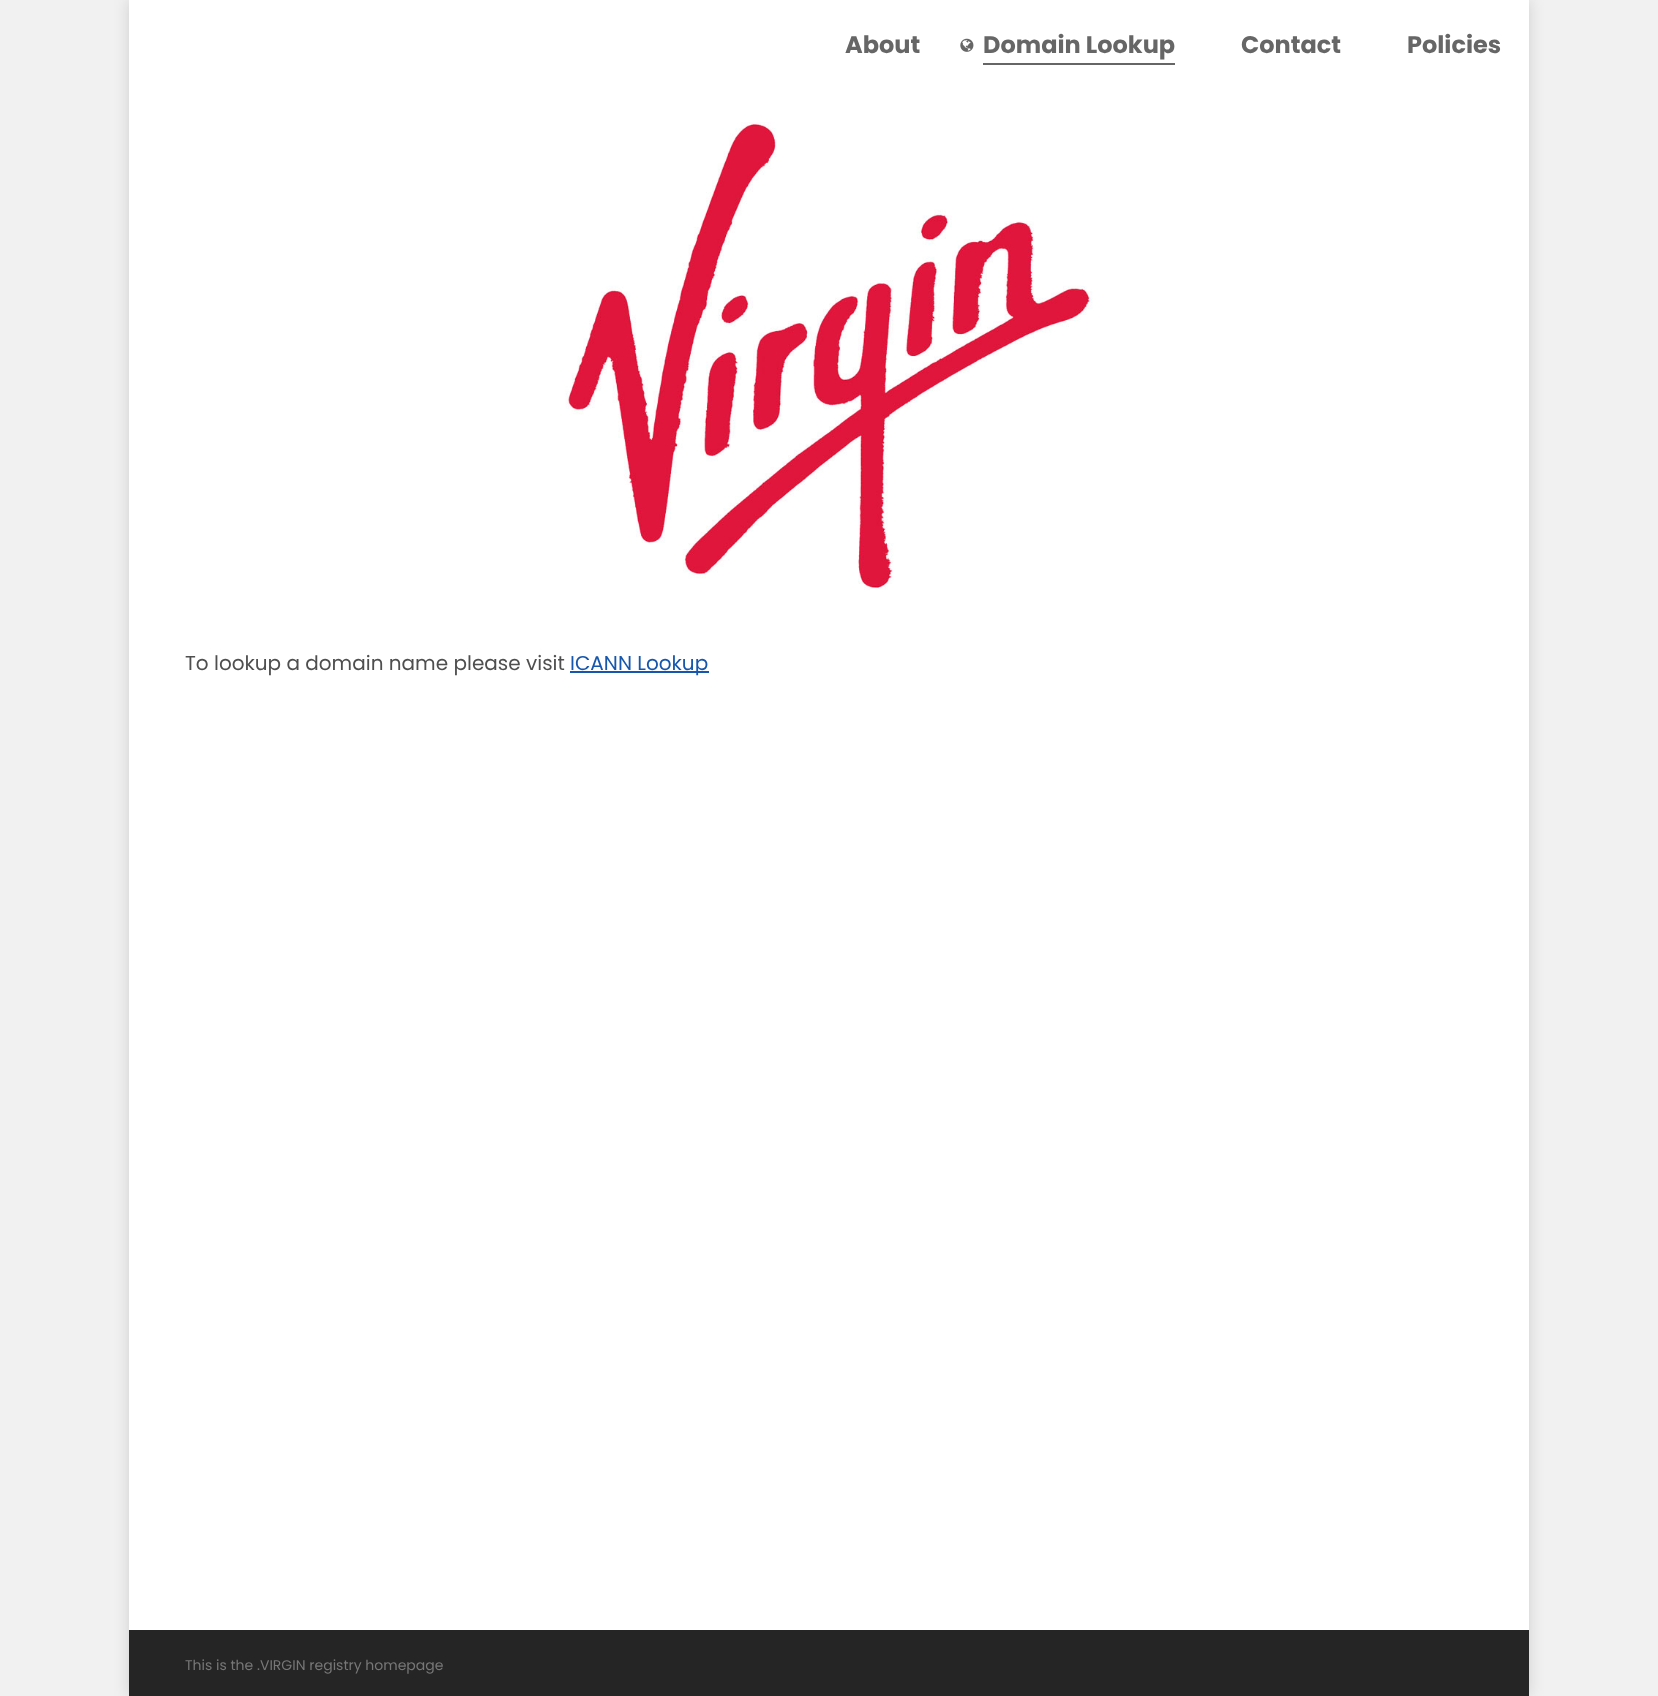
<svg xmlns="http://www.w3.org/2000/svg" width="1658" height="1696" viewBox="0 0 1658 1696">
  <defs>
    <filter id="blur1" x="-50%" y="-200%" width="200%" height="500%"><feGaussianBlur stdDeviation="7.5"/></filter>
  </defs>
  <rect width="100%" height="100%" fill="#f1f1f1"/>
  <rect x="129" y="0" width="1400" height="1696" fill="#000000" fill-opacity="0.15" filter="url(#blur1)"/>
  <rect x="129" y="0" width="1400" height="90" fill="#ffffff"/>
  <text x="845" y="53" font-family="Poppins" font-size="24" font-weight="bold" fill="#666666">About</text>
  <image x="960" y="38" width="14" height="14" href="img1.png"/>
  <text x="983" y="53" font-family="Poppins" font-size="24" font-weight="bold" fill="#666666">Domain Lookup</text>
  <rect x="983" y="63" width="192" height="2" fill="#666666"/>
  <text x="1241" y="53" font-family="Poppins" font-size="24" font-weight="bold" fill="#666666">Contact</text>
  <text x="1407" y="53" font-family="Poppins" font-size="24" font-weight="bold" fill="#666666">Policies</text>
  <rect x="129" y="615" width="1400" height="1015" fill="#ffffff"/>
  <image x="129" y="90" width="1400" height="525" href="img2.png"/>
  <text x="185" y="670" font-family="Poppins" font-size="20" fill="#4f4f4f">To lookup a domain name please visit</text>
  <rect x="570" y="671" width="139" height="2" fill="#1657ad"/>
  <text x="570" y="670" font-family="Poppins" font-size="20" fill="#1657ad">ICANN Lookup</text>
  <rect x="129" y="1630" width="1400" height="66" fill="#252525"/>
  <text x="185" y="1670" font-family="Poppins" font-size="14" fill="#777777">This is the .VIRGIN registry homepage</text>
</svg>
